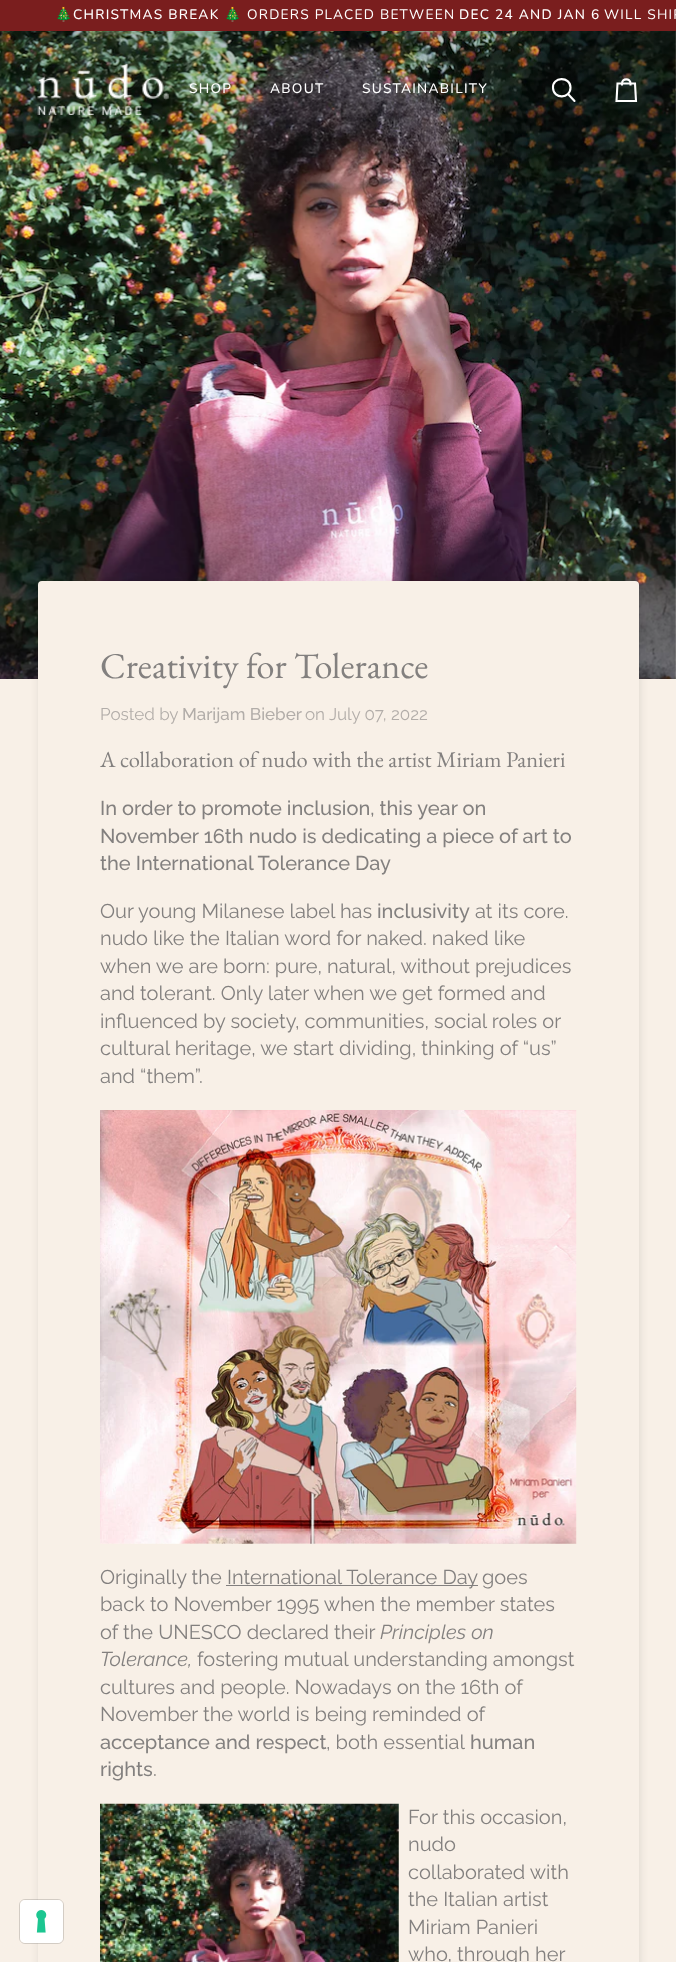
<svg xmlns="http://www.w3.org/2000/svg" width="676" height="1962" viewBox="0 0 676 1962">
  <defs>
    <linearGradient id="g1" gradientUnits="userSpaceOnUse" x1="338" y1="31" x2="338" y2="208"><stop offset="0" stop-color="#000000" stop-opacity="0.2"/><stop offset="1" stop-color="#000000" stop-opacity="0"/></linearGradient>
    <filter id="blur1" x="-50%" y="-200%" width="200%" height="500%"><feGaussianBlur stdDeviation="4.5"/></filter>
  </defs>
  <rect width="100%" height="100%" fill="#f8f0e7"/>
  <rect x="0" y="0" width="676" height="31" fill="#7a1e1e"/>
  <text x="55" y="19" font-family="Noto Color Emoji" font-size="13.7" letter-spacing="1.25" fill="#ffffff">🎄</text>
  <text x="73" y="19" font-family="Nunito" font-size="13.7" font-weight="500" letter-spacing="1.25" fill="#ffffff">CHRISTMAS BREAK</text>
  <text x="224" y="19" font-family="Noto Color Emoji" font-size="13.7" letter-spacing="1.25" fill="#ffffff">🎄</text>
  <text x="247" y="19" font-family="Nunito" font-size="13.7" letter-spacing="1.25" fill="#ffffff">ORDERS PLACED BETWEEN</text>
  <text x="459" y="19" font-family="Nunito" font-size="13.7" font-weight="500" letter-spacing="1.25" fill="#ffffff">DEC 24 AND JAN 6</text>
  <text x="604" y="19" font-family="Nunito" font-size="13.7" letter-spacing="1.25" fill="#ffffff">WILL SHIP</text>
  <image x="0" y="31" width="676" height="648" href="img3.png"/>
  <rect x="0" y="31" width="676" height="158" fill="url(#g1)"/>
  <image x="37" y="63" width="132" height="52" href="img1.png"/>
  <text x="189" y="93" font-family="Nunito" font-size="13.7" font-weight="500" letter-spacing="1.25" fill="#ffffff">SHOP</text>
  <text x="270" y="93" font-family="Nunito" font-size="13.7" font-weight="500" letter-spacing="1.25" fill="#ffffff">ABOUT</text>
  <text x="362" y="93" font-family="Nunito" font-size="13.7" font-weight="500" letter-spacing="1.25" fill="#ffffff">SUSTAINABILITY</text>
  <path d="M570.5 87.5C570.5 99 553.5 99.5 553 88C552 76.5 570.5 76 570.5 87.5ZM574.5 101L568 94Z" fill="none" stroke="#ffffff" stroke-width="2.1" stroke-linecap="round" stroke-linejoin="round"/>
  <path d="M630.5 85.5V83.5H635L636 101H616.5L617.5 83.5H622C622 78 630.5 78 630.5 83.5H622V85.5" fill="none" stroke="#ffffff" stroke-width="2.1"/>
  <rect x="39" y="583" width="601" height="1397" rx="4" fill="#000000" fill-opacity="0.1" filter="url(#blur1)"/>
  <rect x="38" y="581" width="601" height="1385" rx="4" fill="#f8f0e7"/>
  <rect x="19.5" y="1899.5" width="44" height="44" rx="5.5" fill="none" stroke="#000000" stroke-opacity="0.15"/>
  <rect x="20" y="1900" width="43" height="43" rx="5" fill="#ffffff"/>
  <image x="36" y="1910" width="11" height="23" href="img2.png"/>
  <text x="100" y="678" font-family="EB Garamond" font-size="36.25" fill="#83807f">Creativity for Tolerance</text>
  <text x="100" y="720" font-family="Raleway" font-size="17" fill="#b2ada9">Posted by</text>
  <text x="182" y="720" font-family="Raleway" font-size="17" font-weight="500" fill="#b2ada9">Marijam Bieber</text>
  <text x="305" y="720" font-family="Raleway" font-size="17" fill="#b2ada9">on July 07, 2022</text>
  <text x="100" y="767" font-family="EB Garamond" font-size="22.5" fill="#83807f">A collaboration of nudo with the artist Miriam Panieri</text>
  <text x="100" y="815" font-family="Raleway" font-size="20" font-weight="500" fill="#83807f">In order to promote inclusion, this year on</text>
  <text x="100" y="843" font-family="Raleway" font-size="20" font-weight="500" fill="#83807f">November 16th nudo is dedicating a piece of art to</text>
  <text x="100" y="870" font-family="Raleway" font-size="20" font-weight="500" fill="#83807f">the International Tolerance Day</text>
  <text x="100" y="918" font-family="Raleway" font-size="20" fill="#83807f">Our young Milanese label has</text>
  <text x="377" y="918" font-family="Raleway" font-size="20" font-weight="500" fill="#83807f">inclusivity</text>
  <text x="475" y="918" font-family="Raleway" font-size="20" fill="#83807f">at its core.</text>
  <text x="100" y="945" font-family="Raleway" font-size="20" fill="#83807f">nudo like the Italian word for naked. naked like</text>
  <text x="100" y="973" font-family="Raleway" font-size="20" fill="#83807f">when we are born: pure, natural, without prejudices</text>
  <text x="100" y="1000" font-family="Raleway" font-size="20" fill="#83807f">and tolerant. Only later when we get formed and</text>
  <text x="100" y="1028" font-family="Raleway" font-size="20" fill="#83807f">influenced by society, communities, social roles or</text>
  <text x="100" y="1055" font-family="Raleway" font-size="20" fill="#83807f">cultural heritage, we start dividing, thinking of “us”</text>
  <text x="100" y="1083" font-family="Raleway" font-size="20" fill="#83807f">and “them”.</text>
  <image x="100" y="1110" width="477" height="434" href="img4.png"/>
  <text x="100" y="1584" font-family="Raleway" font-size="20" fill="#83807f">Originally the</text>
  <rect x="226" y="1585" width="252" height="1" fill="#83807f"/>
  <text x="227" y="1584" font-family="Raleway" font-size="20" fill="#83807f">International Tolerance Day</text>
  <text x="482" y="1584" font-family="Raleway" font-size="20" fill="#83807f">goes</text>
  <text x="100" y="1611" font-family="Raleway" font-size="20" fill="#83807f">back to November 1995 when the member states</text>
  <text x="100" y="1639" font-family="Raleway" font-size="20" fill="#83807f">of the UNESCO declared their</text>
  <text x="380" y="1639" font-family="Raleway" font-size="20" font-style="italic" fill="#83807f">Principles on</text>
  <text x="100" y="1666" font-family="Raleway" font-size="20" font-style="italic" fill="#83807f">Tolerance,</text>
  <text x="197" y="1666" font-family="Raleway" font-size="20" fill="#83807f">fostering mutual understanding amongst</text>
  <text x="100" y="1694" font-family="Raleway" font-size="20" fill="#83807f">cultures and people. Nowadays on the 16th of</text>
  <text x="100" y="1721" font-family="Raleway" font-size="20" fill="#83807f">November the world is being reminded of</text>
  <text x="100" y="1749" font-family="Raleway" font-size="20" font-weight="500" fill="#83807f">acceptance and respect</text>
  <text x="326" y="1749" font-family="Raleway" font-size="20" fill="#83807f">, both essential</text>
  <text x="470" y="1749" font-family="Raleway" font-size="20" font-weight="500" fill="#83807f">human</text>
  <text x="100" y="1776" font-family="Raleway" font-size="20" font-weight="500" fill="#83807f">rights</text>
  <text x="153" y="1776" font-family="Raleway" font-size="20" fill="#83807f">.</text>
  <image x="100" y="1803" width="299" height="159" href="img5.png"/>
  <text x="408" y="1824" font-family="Raleway" font-size="20" fill="#83807f">For this occasion,</text>
  <text x="408" y="1851" font-family="Raleway" font-size="20" fill="#83807f">nudo</text>
  <text x="408" y="1879" font-family="Raleway" font-size="20" fill="#83807f">collaborated with</text>
  <text x="408" y="1906" font-family="Raleway" font-size="20" fill="#83807f">the Italian artist</text>
  <text x="408" y="1934" font-family="Raleway" font-size="20" fill="#83807f">Miriam Panieri</text>
  <text x="408" y="1961" font-family="Raleway" font-size="20" fill="#83807f">who, through her</text>
</svg>
